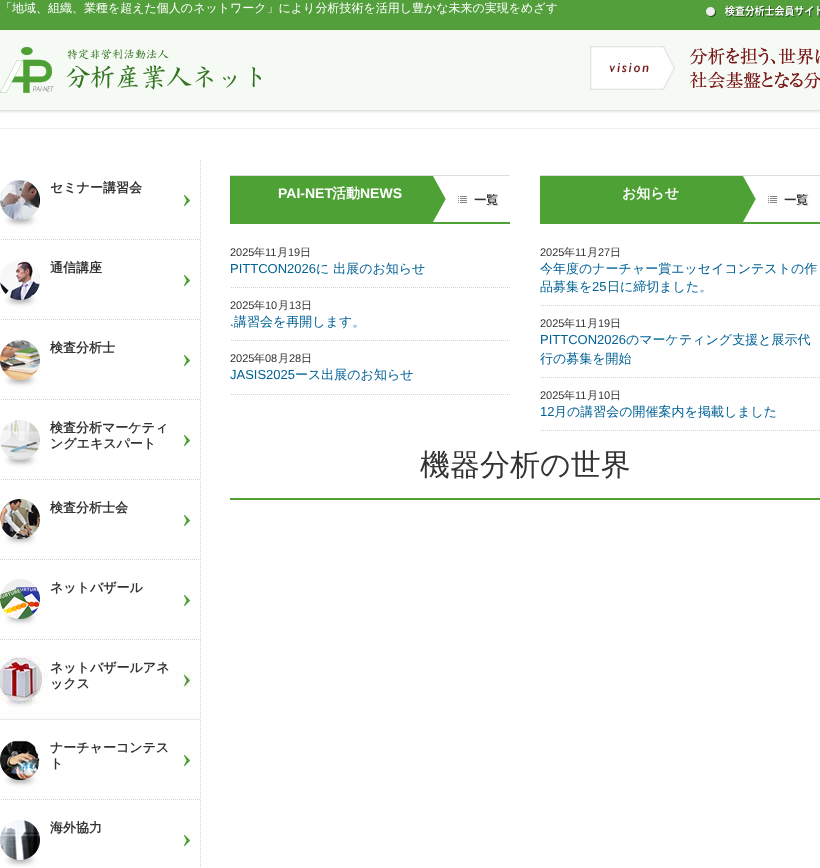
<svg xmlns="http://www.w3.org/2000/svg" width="820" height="868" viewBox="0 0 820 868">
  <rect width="100%" height="100%" fill="#ffffff"/>
  <rect x="0" y="0" width="820" height="30" fill="#529f3c"/>
  <text x="0" y="12" font-family="WenQuanYi Zen Hei" font-size="12" font-weight="500" fill="#ffffff">「地域、組織、業種を超えた個人のネットワーク」により分析技術を活用し豊かな未来の実現をめざす</text>
  <image x="706" y="5" width="114" height="13" href="img1.png"/>
  <image x="0" y="30" width="820" height="83" href="img2.png"/>
  <image x="0" y="47" width="261" height="46" href="img3.png"/>
  <image x="590" y="46" width="230" height="44" href="img4.png"/>
  <rect x="0" y="128" width="820" height="1" fill="#eeeeee"/>
  <image x="0" y="160" width="201" height="80" href="img5.png"/>
  <text x="50" y="192" font-family="WenQuanYi Zen Hei" font-size="13" font-weight="bold" fill="#333333">セミナー講習会</text>
  <image x="0" y="240" width="201" height="80" href="img6.png"/>
  <text x="50" y="272" font-family="WenQuanYi Zen Hei" font-size="13" font-weight="bold" fill="#333333">通信講座</text>
  <image x="0" y="320" width="201" height="80" href="img7.png"/>
  <text x="50" y="352" font-family="WenQuanYi Zen Hei" font-size="13" font-weight="bold" fill="#333333">検査分析士</text>
  <image x="0" y="400" width="201" height="80" href="img8.png"/>
  <text x="50" y="432" font-family="WenQuanYi Zen Hei" font-size="13" font-weight="bold" fill="#333333">検査分析マーケティ</text>
  <text x="50" y="448" font-family="WenQuanYi Zen Hei" font-size="13" font-weight="bold" fill="#333333">ングエキスパート</text>
  <image x="0" y="481" width="201" height="79" href="img9.png"/>
  <text x="50" y="512" font-family="WenQuanYi Zen Hei" font-size="13" font-weight="bold" fill="#333333">検査分析士会</text>
  <image x="0" y="561" width="201" height="79" href="img10.png"/>
  <text x="50" y="592" font-family="WenQuanYi Zen Hei" font-size="13" font-weight="bold" fill="#333333">ネットバザール</text>
  <image x="0" y="640" width="201" height="80" href="img11.png"/>
  <text x="50" y="672" font-family="WenQuanYi Zen Hei" font-size="13" font-weight="bold" fill="#333333">ネットバザールアネ</text>
  <text x="50" y="688" font-family="WenQuanYi Zen Hei" font-size="13" font-weight="bold" fill="#333333">ックス</text>
  <image x="0" y="720" width="201" height="80" href="img12.png"/>
  <text x="50" y="752" font-family="WenQuanYi Zen Hei" font-size="13" font-weight="bold" fill="#333333">ナーチャーコンテス</text>
  <text x="50" y="768" font-family="WenQuanYi Zen Hei" font-size="13" font-weight="bold" fill="#333333">ト</text>
  <image x="0" y="800" width="201" height="67" href="img13.png"/>
  <text x="50" y="832" font-family="WenQuanYi Zen Hei" font-size="13" font-weight="bold" fill="#333333">海外協力</text>
  <image x="230" y="175" width="280" height="49" href="img14.png"/>
  <text x="278" y="198" font-family="Liberation Sans" font-size="14" font-weight="bold" fill="#ffffff">PAI-NET</text>
  <text x="332" y="198" font-family="WenQuanYi Zen Hei" font-size="14" font-weight="bold" fill="#ffffff">活動</text>
  <text x="360" y="198" font-family="Liberation Sans" font-size="14" font-weight="bold" fill="#ffffff">NEWS</text>
  <image x="458" y="194" width="41" height="12" href="img15.png"/>
  <image x="231" y="287" width="279" height="1" href="img16.png"/>
  <text x="230" y="256" font-family="Liberation Sans" font-size="11" fill="#333333">2025</text>
  <text x="254" y="256" font-family="WenQuanYi Zen Hei" font-size="11" font-weight="500" fill="#333333">年</text>
  <text x="265" y="256" font-family="Liberation Sans" font-size="11" fill="#333333">11</text>
  <text x="277" y="256" font-family="WenQuanYi Zen Hei" font-size="11" font-weight="500" fill="#333333">月</text>
  <text x="288" y="256" font-family="Liberation Sans" font-size="11" fill="#333333">19</text>
  <text x="300" y="256" font-family="WenQuanYi Zen Hei" font-size="11" font-weight="500" fill="#333333">日</text>
  <text x="230" y="273" font-family="Liberation Sans" font-size="13" fill="#006195">PITTCON2026</text>
  <text x="316" y="273" font-family="WenQuanYi Zen Hei" font-size="13" font-weight="500" fill="#006195">に 出展のお知らせ</text>
  <image x="231" y="340" width="279" height="1" href="img16.png"/>
  <text x="230" y="309" font-family="Liberation Sans" font-size="11" fill="#333333">2025</text>
  <text x="254" y="309" font-family="WenQuanYi Zen Hei" font-size="11" font-weight="500" fill="#333333">年</text>
  <text x="265" y="309" font-family="Liberation Sans" font-size="11" fill="#333333">10</text>
  <text x="278" y="309" font-family="WenQuanYi Zen Hei" font-size="11" font-weight="500" fill="#333333">月</text>
  <text x="289" y="309" font-family="Liberation Sans" font-size="11" fill="#333333">13</text>
  <text x="301" y="309" font-family="WenQuanYi Zen Hei" font-size="11" font-weight="500" fill="#333333">日</text>
  <text x="230" y="326" font-family="Liberation Sans" font-size="13" fill="#006195">.</text>
  <text x="234" y="326" font-family="WenQuanYi Zen Hei" font-size="13" font-weight="500" fill="#006195">講習会を再開します。</text>
  <image x="231" y="394" width="279" height="1" href="img16.png"/>
  <text x="230" y="362" font-family="Liberation Sans" font-size="11" fill="#333333">2025</text>
  <text x="254" y="362" font-family="WenQuanYi Zen Hei" font-size="11" font-weight="500" fill="#333333">年</text>
  <text x="265" y="362" font-family="Liberation Sans" font-size="11" fill="#333333">08</text>
  <text x="278" y="362" font-family="WenQuanYi Zen Hei" font-size="11" font-weight="500" fill="#333333">月</text>
  <text x="289" y="362" font-family="Liberation Sans" font-size="11" fill="#333333">28</text>
  <text x="301" y="362" font-family="WenQuanYi Zen Hei" font-size="11" font-weight="500" fill="#333333">日</text>
  <text x="230" y="379" font-family="Liberation Sans" font-size="13" fill="#006195">JASIS2025</text>
  <text x="295" y="379" font-family="WenQuanYi Zen Hei" font-size="13" font-weight="500" fill="#006195">ース出展のお知らせ</text>
  <image x="540" y="175" width="280" height="49" href="img14.png"/>
  <text x="622" y="198" font-family="WenQuanYi Zen Hei" font-size="14" font-weight="bold" fill="#ffffff">お知らせ</text>
  <image x="768" y="194" width="41" height="12" href="img15.png"/>
  <image x="541" y="305" width="279" height="1" href="img16.png"/>
  <text x="540" y="256" font-family="Liberation Sans" font-size="11" fill="#333333">2025</text>
  <text x="564" y="256" font-family="WenQuanYi Zen Hei" font-size="11" font-weight="500" fill="#333333">年</text>
  <text x="575" y="256" font-family="Liberation Sans" font-size="11" fill="#333333">11</text>
  <text x="587" y="256" font-family="WenQuanYi Zen Hei" font-size="11" font-weight="500" fill="#333333">月</text>
  <text x="598" y="256" font-family="Liberation Sans" font-size="11" fill="#333333">27</text>
  <text x="610" y="256" font-family="WenQuanYi Zen Hei" font-size="11" font-weight="500" fill="#333333">日</text>
  <text x="540" y="273" font-family="WenQuanYi Zen Hei" font-size="13" font-weight="500" fill="#006195">今年度のナーチャー賞エッセイコンテストの作</text>
  <text x="540" y="291" font-family="WenQuanYi Zen Hei" font-size="13" font-weight="500" fill="#006195">品募集を</text>
  <text x="592" y="291" font-family="Liberation Sans" font-size="13" fill="#006195">25</text>
  <text x="607" y="291" font-family="WenQuanYi Zen Hei" font-size="13" font-weight="500" fill="#006195">日に締切ました。</text>
  <image x="541" y="377" width="279" height="1" href="img16.png"/>
  <text x="540" y="327" font-family="Liberation Sans" font-size="11" fill="#333333">2025</text>
  <text x="564" y="327" font-family="WenQuanYi Zen Hei" font-size="11" font-weight="500" fill="#333333">年</text>
  <text x="575" y="327" font-family="Liberation Sans" font-size="11" fill="#333333">11</text>
  <text x="587" y="327" font-family="WenQuanYi Zen Hei" font-size="11" font-weight="500" fill="#333333">月</text>
  <text x="598" y="327" font-family="Liberation Sans" font-size="11" fill="#333333">19</text>
  <text x="610" y="327" font-family="WenQuanYi Zen Hei" font-size="11" font-weight="500" fill="#333333">日</text>
  <text x="540" y="344" font-family="Liberation Sans" font-size="13" fill="#006195">PITTCON2026</text>
  <text x="626" y="344" font-family="WenQuanYi Zen Hei" font-size="13" font-weight="500" fill="#006195">のマーケティング支援と展示代</text>
  <text x="540" y="363" font-family="WenQuanYi Zen Hei" font-size="13" font-weight="500" fill="#006195">行の募集を開始</text>
  <image x="541" y="430" width="279" height="1" href="img16.png"/>
  <text x="540" y="399" font-family="Liberation Sans" font-size="11" fill="#333333">2025</text>
  <text x="564" y="399" font-family="WenQuanYi Zen Hei" font-size="11" font-weight="500" fill="#333333">年</text>
  <text x="575" y="399" font-family="Liberation Sans" font-size="11" fill="#333333">11</text>
  <text x="587" y="399" font-family="WenQuanYi Zen Hei" font-size="11" font-weight="500" fill="#333333">月</text>
  <text x="598" y="399" font-family="Liberation Sans" font-size="11" fill="#333333">10</text>
  <text x="610" y="399" font-family="WenQuanYi Zen Hei" font-size="11" font-weight="500" fill="#333333">日</text>
  <text x="540" y="416" font-family="Liberation Sans" font-size="13" fill="#006195">12</text>
  <text x="554" y="416" font-family="WenQuanYi Zen Hei" font-size="13" font-weight="500" fill="#006195">月の講習会の開催案内を掲載しました</text>
  <rect x="230" y="498" width="590" height="2" fill="#4fa035"/>
  <text x="420" y="475" font-family="WenQuanYi Zen Hei" font-size="30" font-weight="500" fill="#333333">機器分析の世界</text>
</svg>
